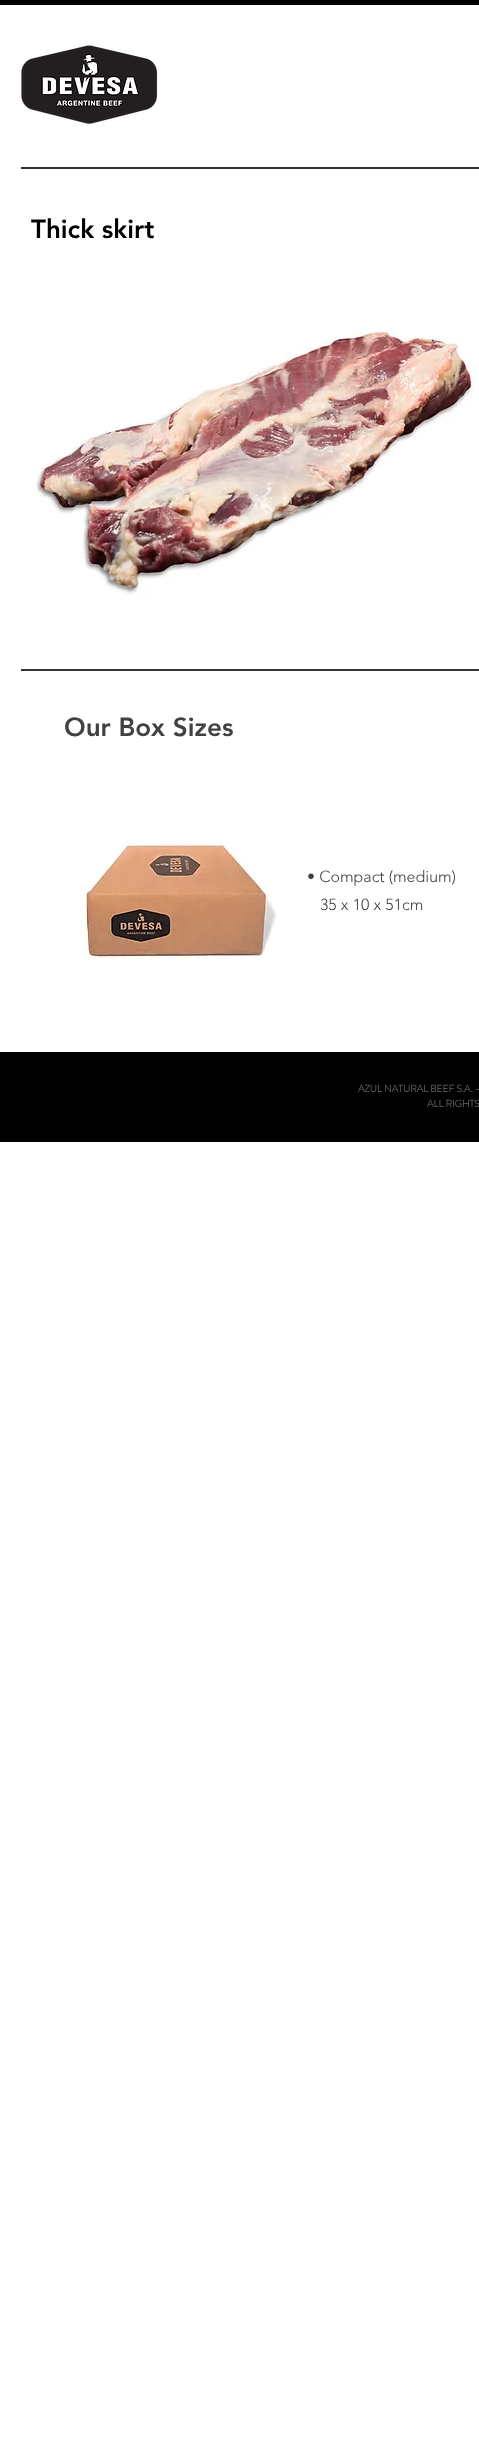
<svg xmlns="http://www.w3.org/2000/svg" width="479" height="2444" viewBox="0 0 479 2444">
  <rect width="100%" height="100%" fill="#ffffff"/>
  <rect x="0" y="0" width="479" height="5" fill="#000000"/>
  <image x="21" y="45" width="137" height="79" href="img1.png"/>
  <rect x="21" y="167" width="458" height="2" fill="#333333"/>
  <text x="31" y="238" font-family="'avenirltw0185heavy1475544'" font-size="26" font-weight="900" fill="#000000">Thick skirt</text>
  <image x="36" y="330" width="438" height="268" href="img2.png"/>
  <rect x="21" y="669" width="458" height="2" fill="#333333"/>
  <text x="64" y="736" font-family="'avenirltw0185heavy1475544'" font-size="26" font-weight="900" fill="#414141">Our Box Sizes</text>
  <image x="84" y="841" width="193" height="118" href="img3.png"/>
  <text x="307" y="882" font-family="'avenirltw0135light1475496'" font-size="16" font-weight="300" fill="#414141">• Compact (medium)</text>
  <text x="320" y="910" font-family="'avenirltw0135light1475496'" font-size="16" font-weight="300" fill="#414141">35 x 10 x 51cm</text>
  <rect x="0" y="1052" width="479" height="90" fill="#000000"/>
  <text x="358" y="1092" font-family="'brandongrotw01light'" font-size="10" font-weight="bold" fill="#6b6666">AZUL NATURAL BEEF S.A. –</text>
  <text x="427" y="1107" font-family="'brandongrotw01light'" font-size="10" font-weight="bold" fill="#6b6666">ALL RIGHTS</text>
</svg>
